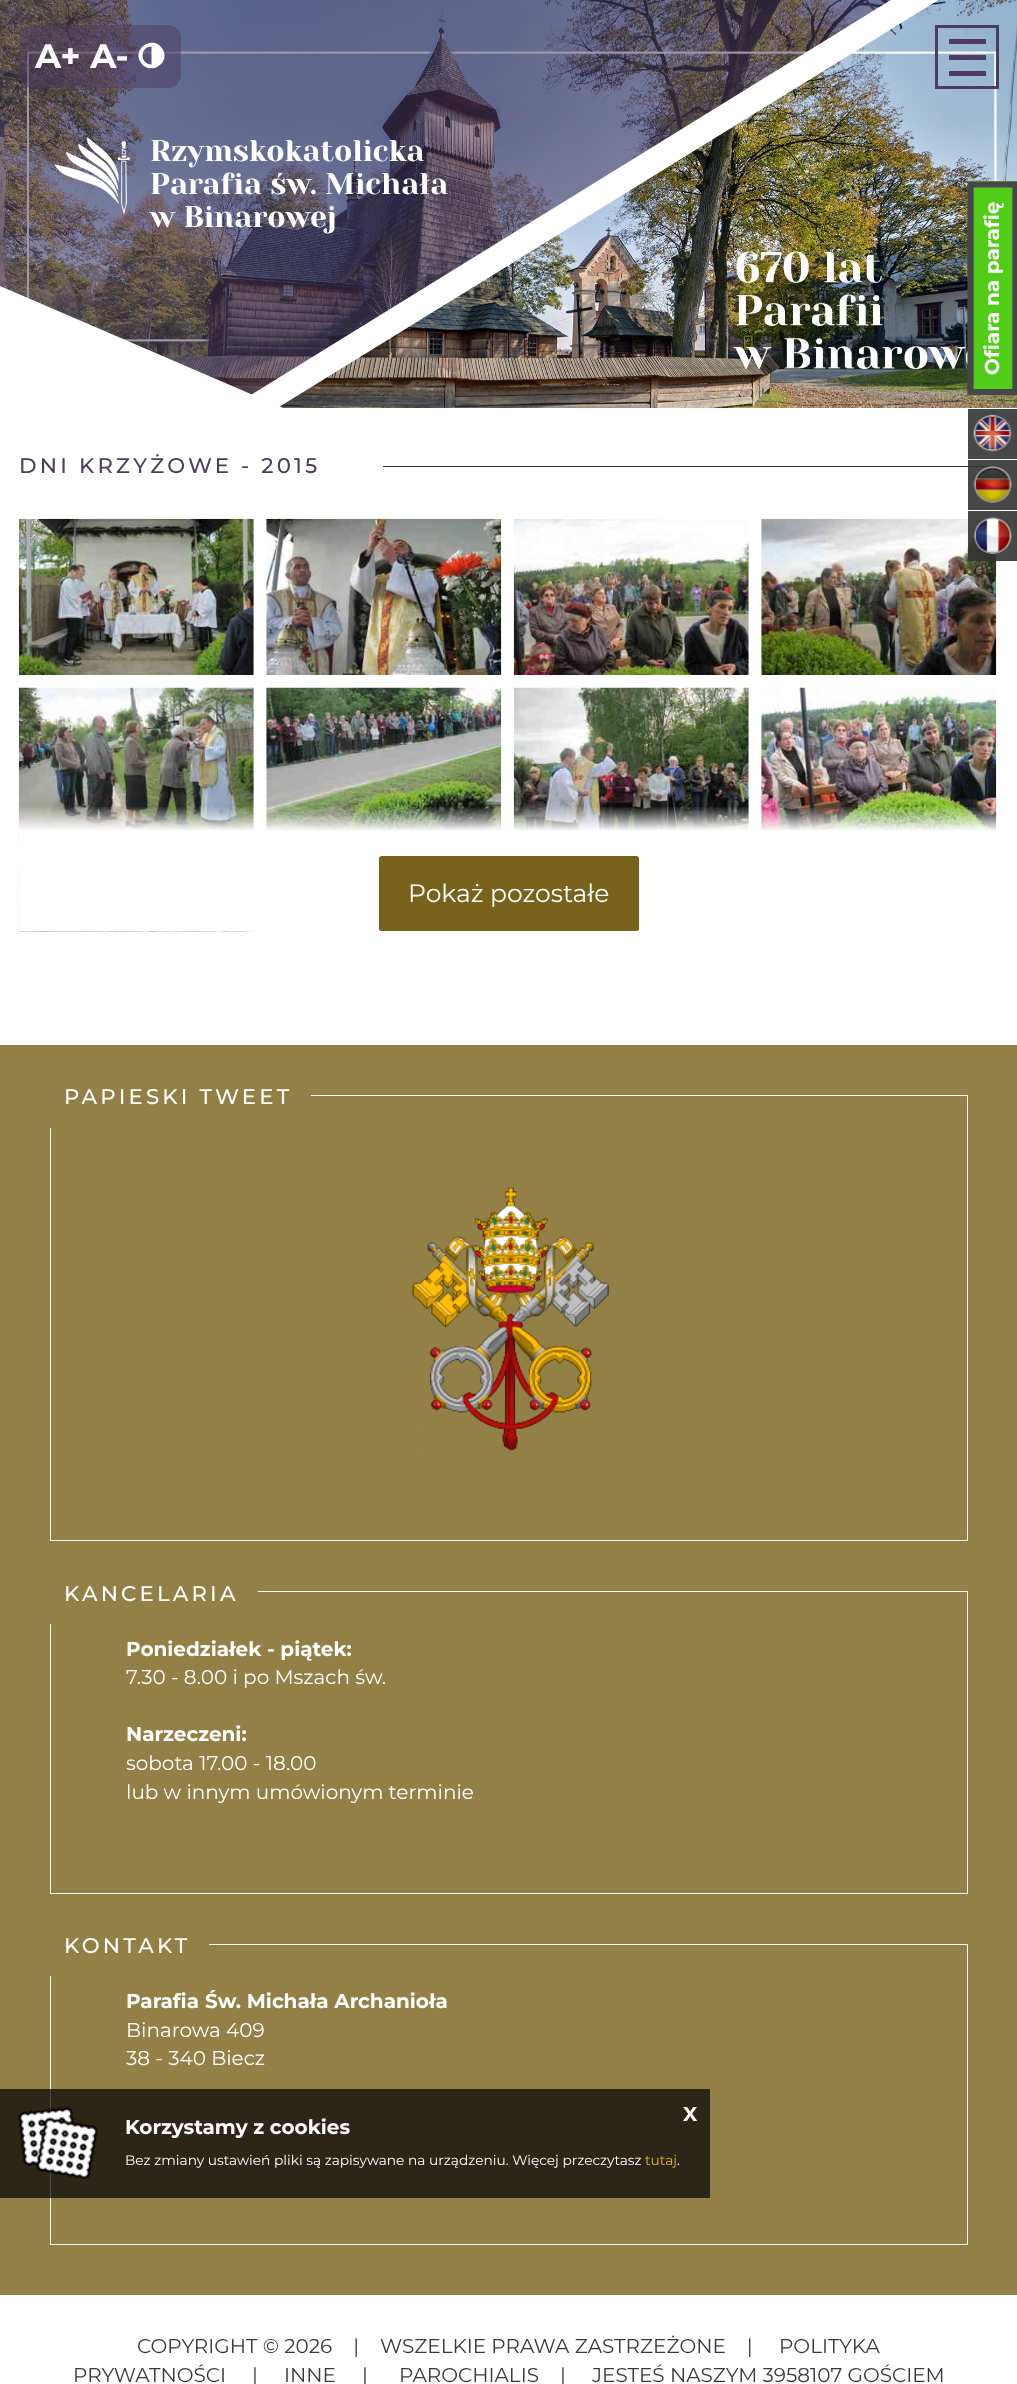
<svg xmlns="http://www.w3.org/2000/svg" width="1017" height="2384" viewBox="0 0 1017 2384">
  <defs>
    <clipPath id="clip1"><rect x="0" y="0" width="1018" height="408"/></clipPath>
    <linearGradient id="g1" gradientUnits="userSpaceOnUse" x1="509" y1="806" x2="509" y2="931"><stop offset="0" stop-color="#ffffff" stop-opacity="0"/><stop offset="0.2" stop-color="#ffffff"/></linearGradient>
  </defs>
  <rect width="100%" height="100%" fill="#ffffff"/>
  <rect x="968" y="460" width="49" height="50" fill="#474747"/>
  <image x="281" y="407" width="736" height="1" href="img2.png"/>
  <image x="0" y="0" width="1017" height="408" href="img1.png"/>
  <g clip-path="url(#clip1)">
    <path d="M-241 70L781-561L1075-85L53 546Z" fill="#4d3c60" fill-opacity="0.53"/>
    <path d="M-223.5 74.5L777-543.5L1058-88.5L57.5 529Z" fill="none" stroke="#ffffff" stroke-width="25"/>
    <path d="M-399 349L-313 151L369 445L284 643Z" fill="#ffffff"/>
  </g>
  <rect x="19" y="25" width="162" height="63" rx="13" fill="#4d3c60" fill-opacity="0.53"/>
  <text x="35" y="68" font-family="Montserrat" font-size="34" font-weight="bold" fill="#ffffff">A+ A-</text>
  <path d="M151.5 64.5V46.5C139.5 46.5 139.5 64.5 151.5 64.5ZM162.5 49C171.5 63.5 149 76.5 140.5 62C132 47.5 154 34.5 162.5 49Z" fill="#ffffff"/>
  <rect x="936.5" y="26.5" width="61" height="61" fill="none" stroke="#4d3c60" stroke-width="3"/>
  <rect x="949" y="39" width="37" height="5" fill="#4d3c60"/>
  <rect x="949" y="55" width="37" height="5" fill="#4d3c60"/>
  <rect x="949" y="71" width="37" height="5" fill="#4d3c60"/>
  <image x="54" y="137" width="76" height="78" href="img3.png"/>
  <text x="150" y="161" font-family="Yeseva One" font-size="30" fill="#ffffff">Rzymskokatolicka</text>
  <text x="150" y="194" font-family="Yeseva One" font-size="30" fill="#ffffff">Parafia św. Michała</text>
  <text x="150" y="227" font-family="Yeseva One" font-size="30" fill="#ffffff">w Binarowej</text>
  <rect x="968" y="181" width="49" height="208" fill="#50cc19"/>
  <path d="M970.5 392V184.5H1015.5V392Z" fill="none" stroke="#48464b" stroke-width="6.2"/>
  <text x="999" y="375" transform="rotate(-90 999 375)" font-family="Montserrat" font-size="20" font-weight="bold" fill="#ffffff">Ofiara na parafię</text>
  <rect x="968" y="409" width="49" height="50" fill="#474747"/>
  <image x="973" y="415" width="39" height="37" href="img4.png"/>
  <rect x="383" y="466" width="616" height="1" fill="#333333"/>
  <image x="973" y="466" width="39" height="37" href="img5.png"/>
  <image x="761" y="518" width="236" height="157" href="img10.png"/>
  <rect x="968" y="511" width="49" height="50" fill="#333333" fill-opacity="0.9"/>
  <image x="973" y="517" width="39" height="37" href="img6.png"/>
  <text x="19" y="473" font-family="Montserrat" font-size="21.25" font-weight="500" letter-spacing="3.2" fill="#4d3c60">DNI KRZYŻOWE - 2015</text>
  <image x="18" y="518" width="236" height="157" href="img7.png"/>
  <image x="266" y="518" width="236" height="157" href="img8.png"/>
  <image x="513" y="519" width="236" height="156" href="img9.png"/>
  <image x="18" y="687" width="236" height="157" href="img11.png"/>
  <image x="266" y="687" width="236" height="144" href="img12.png"/>
  <image x="513" y="687" width="236" height="144" href="img13.png"/>
  <image x="761" y="687" width="236" height="144" href="img14.png"/>
  <image x="18" y="856" width="236" height="76" href="img15.png"/>
  <rect x="19" y="807" width="978" height="124" fill="url(#g1)"/>
  <rect x="380.5" y="857.5" width="257" height="72" rx="1" fill="#79621c" stroke="#79621c" stroke-width="3"/>
  <text x="408" y="902" font-family="Montserrat" font-size="25" fill="#ffffff">Pokaż pozostałe</text>
  <rect x="0" y="1045" width="1017" height="1250" fill="#928047"/>
  <rect x="50.5" y="1095.5" width="917" height="445" fill="none" stroke="#ffffff"/>
  <rect x="50" y="1095" width="261" height="33" fill="#928047"/>
  <text x="64" y="1104" font-family="Montserrat" font-size="21.25" font-weight="500" letter-spacing="3.2" fill="#ffffff">PAPIESKI TWEET</text>
  <image x="409" y="1187" width="200" height="268" href="img16.png"/>
  <rect x="50.5" y="1591.5" width="917" height="302" fill="none" stroke="#ffffff"/>
  <rect x="50" y="1591" width="208" height="33" fill="#928047"/>
  <text x="64" y="1601" font-family="Montserrat" font-size="21.25" font-weight="500" letter-spacing="3.2" fill="#ffffff">KANCELARIA</text>
  <text x="126" y="1656" font-family="Montserrat" font-size="20" font-weight="bold" fill="#ffffff">Poniedziałek - piątek:</text>
  <text x="126" y="1684" font-family="Montserrat" font-size="20" fill="#ffffff">7.30 - 8.00 i po Mszach św.</text>
  <text x="126" y="1741" font-family="Montserrat" font-size="20" font-weight="bold" fill="#ffffff">Narzeczeni:</text>
  <text x="126" y="1770" font-family="Montserrat" font-size="20" fill="#ffffff">sobota 17.00 - 18.00</text>
  <text x="126" y="1799" font-family="Montserrat" font-size="20" fill="#ffffff">lub w innym umówionym terminie</text>
  <rect x="50.5" y="1944.5" width="917" height="300" fill="none" stroke="#ffffff"/>
  <rect x="50" y="1944" width="159" height="32" fill="#928047"/>
  <text x="64" y="1953" font-family="Montserrat" font-size="21.25" font-weight="500" letter-spacing="3.2" fill="#ffffff">KONTAKT</text>
  <text x="126" y="2008" font-family="Montserrat" font-size="20" font-weight="bold" fill="#ffffff">Parafia</text>
  <text x="205" y="2008" font-family="Montserrat" font-size="20" font-weight="bold" fill="#ffffff">Św. Michała Archanioła</text>
  <text x="126" y="2037" font-family="Montserrat" font-size="20" fill="#ffffff">Binarowa 409</text>
  <text x="126" y="2065" font-family="Montserrat" font-size="20" fill="#ffffff">38 - 340 Biecz</text>
  <text x="137" y="2353" font-family="Montserrat" font-size="20" fill="#353a40" xml:space="preserve">COPYRIGHT © 2026    |    WSZELKIE PRAWA ZASTRZEŻONE    |</text>
  <text x="779" y="2353" font-family="Montserrat" font-size="20" fill="#353a40">POLITYKA</text>
  <text x="73" y="2382" font-family="Montserrat" font-size="20" fill="#353a40">PRYWATNOŚCI</text>
  <text x="252" y="2382" font-family="Montserrat" font-size="20" fill="#353a40">|</text>
  <text x="284" y="2382" font-family="Montserrat" font-size="20" fill="#353a40">INNE</text>
  <text x="362" y="2382" font-family="Montserrat" font-size="20" fill="#353a40">|</text>
  <text x="399" y="2382" font-family="Montserrat" font-size="20" fill="#353a40">PAROCHIALIS</text>
  <text x="560" y="2382" font-family="Montserrat" font-size="20" fill="#353a40">|</text>
  <text x="592" y="2382" font-family="Montserrat" font-size="20" fill="#353a40">JESTEŚ NASZYM 3958107 GOŚCIEM</text>
  <rect x="0" y="2089" width="710" height="109" fill="#000000" fill-opacity="0.7"/>
  <image x="18" y="2107" width="80" height="72" href="img17.png"/>
  <text x="683" y="2121" font-family="Montserrat" font-size="20" font-weight="bold" fill="#ffffff">X</text>
  <text x="125" y="2134" font-family="Montserrat" font-size="20" font-weight="bold" fill="#ffffff">Korzystamy z cookies</text>
  <text x="125" y="2165" font-family="Montserrat" font-size="13.75" fill="#ffffff">Bez zmiany ustawień pliki są zapisywane na urządzeniu. Więcej przeczytasz</text>
  <text x="645" y="2165" font-family="Montserrat" font-size="13.75" fill="#e2b421">tutaj</text>
  <text x="677" y="2165" font-family="Montserrat" font-size="13.75" fill="#ffffff">.</text>
</svg>
